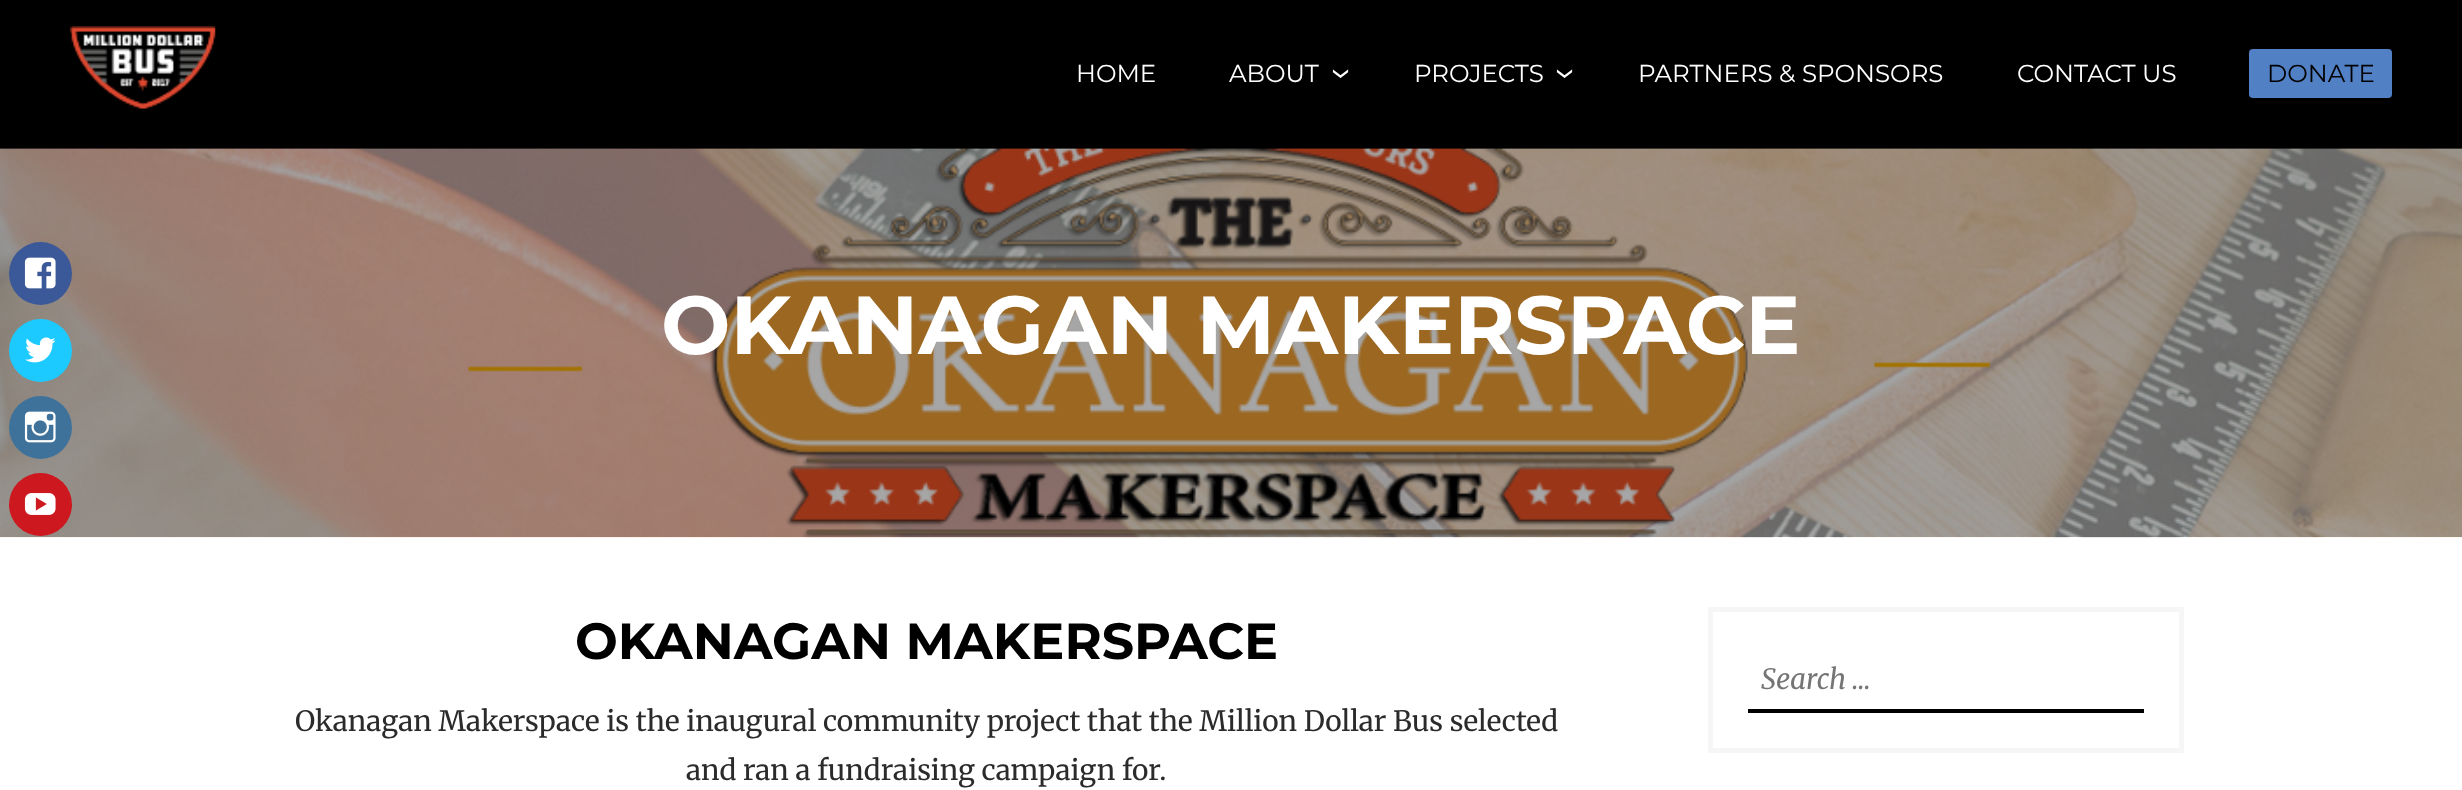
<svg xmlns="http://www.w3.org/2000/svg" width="2462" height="790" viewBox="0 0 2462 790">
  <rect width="100%" height="100%" fill="#ffffff"/>
  <rect x="0" y="0" width="2462" height="149" fill="#000000"/>
  <image x="70" y="26" width="146" height="83" href="img1.png"/>
  <text x="1076" y="82" font-family="Montserrat" font-size="24.5" fill="#ffffff">HOME</text>
  <text x="1229" y="82" font-family="Montserrat" font-size="24.5" fill="#ffffff">ABOUT</text>
  <text x="1330" y="68" transform="rotate(90 1330 68)" font-family="Montserrat" font-size="40" fill="#ffffff">›</text>
  <text x="1414" y="82" font-family="Montserrat" font-size="24.5" fill="#ffffff">PROJECTS</text>
  <text x="1554" y="68" transform="rotate(90 1554 68)" font-family="Montserrat" font-size="40" fill="#ffffff">›</text>
  <text x="1638" y="82" font-family="Montserrat" font-size="24.5" fill="#ffffff">PARTNERS &amp; SPONSORS</text>
  <text x="2017" y="82" font-family="Montserrat" font-size="24.5" fill="#ffffff">CONTACT US</text>
  <rect x="2249" y="49" width="143" height="49" rx="4" fill="#5280c4"/>
  <text x="2267" y="82" font-family="Montserrat" font-size="24.5" fill="#000000">DONATE</text>
  <image x="0" y="148" width="2462" height="390" href="img6.png"/>
  <circle cx="40.5" cy="273.5" r="31.5" fill="#3b5998"/>
  <image x="24" y="257" width="32" height="32" href="img2.png"/>
  <circle cx="40.5" cy="350.5" r="31.5" fill="#1dcaff"/>
  <image x="25" y="337" width="31" height="26" href="img3.png"/>
  <circle cx="40.5" cy="427.5" r="31.5" fill="#3f729b"/>
  <image x="24" y="411" width="32" height="32" href="img4.png"/>
  <circle cx="40.5" cy="504.5" r="31.5" fill="#cc181e"/>
  <image x="24" y="493" width="32" height="22" href="img5.png"/>
  <text x="661" y="354" font-family="Montserrat" font-size="82.25" font-weight="bold" fill="#ffffff">OKANAGAN MAKERSPACE</text>
  <text x="575" y="659" font-family="Montserrat" font-size="50.75" font-weight="bold" fill="#000000">OKANAGAN MAKERSPACE</text>
  <text x="295" y="731" font-family="Merriweather" font-size="28" fill="#2b2b2b">Okanagan Makerspace is the inaugural community project that the Million Dollar Bus selected</text>
  <text x="686" y="780" font-family="Merriweather" font-size="28" fill="#2b2b2b">and ran a fundraising campaign for.</text>
  <rect x="1710.5" y="609.5" width="471" height="141" fill="none" stroke="#f6f6f6" stroke-width="5"/>
  <rect x="1748" y="709" width="396" height="4" fill="#000000"/>
  <text x="1761" y="689" font-family="Merriweather" font-size="28" font-style="italic" fill="#757575">Search …</text>
</svg>
